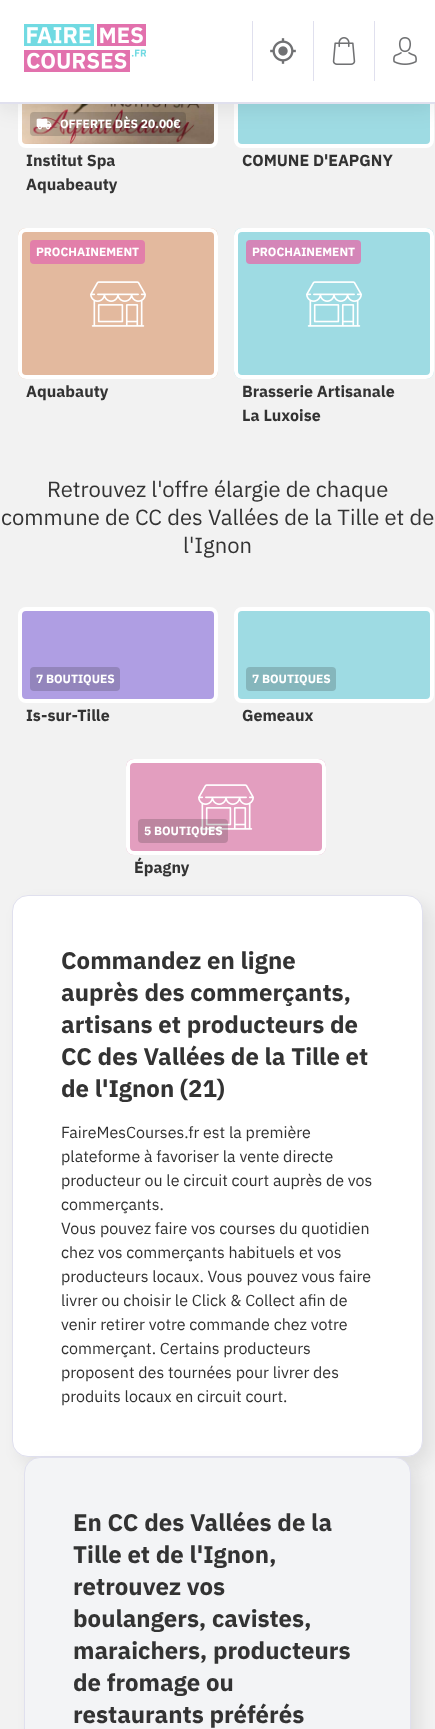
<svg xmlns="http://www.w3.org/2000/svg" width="435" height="1729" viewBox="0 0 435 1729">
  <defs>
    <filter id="blur1" x="-50%" y="-200%" width="200%" height="500%"><feGaussianBlur stdDeviation="12"/></filter>
    <filter id="blur2" x="-50%" y="-200%" width="200%" height="500%"><feGaussianBlur stdDeviation="8"/></filter>
  </defs>
  <rect width="100%" height="100%" fill="#f2f2f2"/>
  <image x="22" y="104" width="192" height="40" href="img5.png"/>
  <rect x="20" y="-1" width="196" height="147" rx="6" fill="none" stroke="#ffffff" stroke-width="4"/>
  <rect x="30" y="112" width="156" height="24" rx="4" fill="#212121" fill-opacity="0.2"/>
  <image x="36" y="118" width="16" height="12" href="img6.png"/>
  <rect x="236" y="-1" width="196" height="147" rx="6" fill="#9edbe3" stroke="#ffffff" stroke-width="4"/>
  <rect x="0" y="0" width="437" height="106" fill="#212121" fill-opacity="0.1" filter="url(#blur1)"/>
  <rect x="0" y="0" width="435" height="102" fill="#ffffff"/>
  <rect x="0" y="102" width="435" height="2" fill="#e0e0ee"/>
  <image x="24" y="24" width="122" height="48" href="img1.png"/>
  <rect x="252" y="21" width="1" height="60" fill="#e0e0ee"/>
  <image x="270" y="38" width="26" height="26" href="img2.png"/>
  <rect x="313" y="21" width="1" height="60" fill="#e0e0ee"/>
  <image x="332" y="37" width="24" height="28" href="img3.png"/>
  <rect x="374" y="21" width="1" height="60" fill="#e0e0ee"/>
  <image x="393" y="37" width="24" height="28" href="img4.png"/>
  <text x="60" y="128" font-family="IBM Plex Sans" font-size="12" font-weight="bold" fill="#ffffff">OFFERTE DÈS 20.00€</text>
  <text x="26" y="166" font-family="IBM Plex Sans" font-size="16" font-weight="bold" fill="#333333">Institut Spa</text>
  <text x="26" y="190" font-family="IBM Plex Sans" font-size="16" font-weight="bold" fill="#333333">Aquabeauty</text>
  <text x="242" y="166" font-family="IBM Plex Sans" font-size="16" font-weight="bold" fill="#333333">COMUNE D'EAPGNY</text>
  <rect x="18" y="228" width="200" height="151" rx="8" fill="#e3b99e"/>
  <image x="90" y="281" width="56" height="46" href="img7.png"/>
  <rect x="20" y="230" width="196" height="147" rx="6" fill="none" stroke="#ffffff" stroke-width="4"/>
  <rect x="30" y="240" width="115" height="24" rx="4" fill="#e27faa"/>
  <text x="36" y="256" font-family="IBM Plex Sans" font-size="12" font-weight="bold" fill="#ffffff">PROCHAINEMENT</text>
  <text x="26" y="397" font-family="IBM Plex Sans" font-size="16" font-weight="bold" fill="#333333">Aquabauty</text>
  <rect x="234" y="228" width="200" height="151" rx="8" fill="#9edbe3"/>
  <image x="306" y="281" width="56" height="46" href="img8.png"/>
  <rect x="236" y="230" width="196" height="147" rx="6" fill="none" stroke="#ffffff" stroke-width="4"/>
  <rect x="246" y="240" width="115" height="24" rx="4" fill="#d486b8"/>
  <text x="252" y="256" font-family="IBM Plex Sans" font-size="12" font-weight="bold" fill="#ffffff">PROCHAINEMENT</text>
  <text x="242" y="397" font-family="IBM Plex Sans" font-size="16" font-weight="bold" fill="#333333">Brasserie Artisanale</text>
  <text x="242" y="421" font-family="IBM Plex Sans" font-size="16" font-weight="bold" fill="#333333">La Luxoise</text>
  <text x="47" y="497" font-family="IBM Plex Sans" font-size="22" fill="#333333">Retrouvez l'offre élargie de chaque</text>
  <text x="1" y="525" font-family="IBM Plex Sans" font-size="22" fill="#333333">commune de CC des Vallées de la Tille et de</text>
  <text x="183" y="553" font-family="IBM Plex Sans" font-size="22" fill="#333333">l'Ignon</text>
  <rect x="20" y="609" width="196" height="92" rx="6" fill="#af9ee3" stroke="#ffffff" stroke-width="4"/>
  <rect x="30" y="667" width="90" height="24" rx="4" fill="#9385bc"/>
  <text x="36" y="683" font-family="IBM Plex Sans" font-size="12" font-weight="bold" fill="#ffffff">7 BOUTIQUES</text>
  <text x="26" y="721" font-family="IBM Plex Sans" font-size="16" font-weight="bold" fill="#333333">Is-sur-Tille</text>
  <rect x="236" y="609" width="196" height="92" rx="6" fill="#9edbe3" stroke="#ffffff" stroke-width="4"/>
  <rect x="246" y="667" width="90" height="24" rx="4" fill="#85b6bc"/>
  <text x="252" y="683" font-family="IBM Plex Sans" font-size="12" font-weight="bold" fill="#ffffff">7 BOUTIQUES</text>
  <text x="242" y="721" font-family="IBM Plex Sans" font-size="16" font-weight="bold" fill="#333333">Gemeaux</text>
  <rect x="126" y="759" width="200" height="96" rx="8" fill="#e39ebf"/>
  <image x="198" y="784" width="56" height="46" href="img9.png"/>
  <rect x="128" y="761" width="196" height="92" rx="6" fill="none" stroke="#ffffff" stroke-width="4"/>
  <rect x="138" y="819" width="90" height="24" rx="4" fill="#212121" fill-opacity="0.2"/>
  <text x="144" y="835" font-family="IBM Plex Sans" font-size="12" font-weight="bold" fill="#ffffff">5 BOUTIQUES</text>
  <text x="134" y="873" font-family="IBM Plex Sans" font-size="16" font-weight="bold" fill="#333333">Épagny</text>
  <rect x="20" y="903" width="411" height="562" rx="16" fill="#212121" fill-opacity="0.08" filter="url(#blur2)"/>
  <rect x="12.5" y="895.5" width="410" height="561" rx="15.5" fill="#ffffff" stroke="#e0e0ee"/>
  <text x="61" y="969" font-family="IBM Plex Sans" font-size="24" font-weight="bold" fill="#333333">Commandez en ligne</text>
  <text x="61" y="1001" font-family="IBM Plex Sans" font-size="24" font-weight="bold" fill="#333333">auprès des commerçants,</text>
  <text x="61" y="1033" font-family="IBM Plex Sans" font-size="24" font-weight="bold" fill="#333333">artisans et producteurs de</text>
  <text x="61" y="1065" font-family="IBM Plex Sans" font-size="24" font-weight="bold" fill="#333333">CC des Vallées de la Tille et</text>
  <text x="61" y="1097" font-family="IBM Plex Sans" font-size="24" font-weight="bold" fill="#333333">de l'Ignon (21)</text>
  <text x="61" y="1138" font-family="IBM Plex Sans" font-size="16" fill="#333333">FaireMesCourses.fr est la première</text>
  <text x="61" y="1162" font-family="IBM Plex Sans" font-size="16" fill="#333333">plateforme à favoriser la vente directe</text>
  <text x="61" y="1186" font-family="IBM Plex Sans" font-size="16" fill="#333333">producteur ou le circuit court auprès de vos</text>
  <text x="61" y="1210" font-family="IBM Plex Sans" font-size="16" fill="#333333">commerçants.</text>
  <text x="61" y="1234" font-family="IBM Plex Sans" font-size="16" fill="#333333">Vous pouvez faire vos courses du quotidien</text>
  <text x="61" y="1258" font-family="IBM Plex Sans" font-size="16" fill="#333333">chez vos commerçants habituels et vos</text>
  <text x="61" y="1282" font-family="IBM Plex Sans" font-size="16" fill="#333333">producteurs locaux. Vous pouvez vous faire</text>
  <text x="61" y="1306" font-family="IBM Plex Sans" font-size="16" fill="#333333">livrer ou choisir le Click &amp; Collect afin de</text>
  <text x="61" y="1330" font-family="IBM Plex Sans" font-size="16" fill="#333333">venir retirer votre commande chez votre</text>
  <text x="61" y="1354" font-family="IBM Plex Sans" font-size="16" fill="#333333">commerçant. Certains producteurs</text>
  <text x="61" y="1378" font-family="IBM Plex Sans" font-size="16" fill="#333333">proposent des tournées pour livrer des</text>
  <text x="61" y="1402" font-family="IBM Plex Sans" font-size="16" fill="#333333">produits locaux en circuit court.</text>
  <rect x="32" y="1465" width="387" height="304" rx="16" fill="#212121" fill-opacity="0.08" filter="url(#blur2)"/>
  <rect x="24.5" y="1457.5" width="386" height="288" rx="15.5" fill="#f3f4f6" stroke="#e0e0ee"/>
  <text x="73" y="1531" font-family="IBM Plex Sans" font-size="24" font-weight="bold" fill="#333333">En CC des Vallées de la</text>
  <text x="73" y="1563" font-family="IBM Plex Sans" font-size="24" font-weight="bold" fill="#333333">Tille et de l'Ignon,</text>
  <text x="73" y="1595" font-family="IBM Plex Sans" font-size="24" font-weight="bold" fill="#333333">retrouvez vos</text>
  <text x="73" y="1627" font-family="IBM Plex Sans" font-size="24" font-weight="bold" fill="#333333">boulangers, cavistes,</text>
  <text x="73" y="1659" font-family="IBM Plex Sans" font-size="24" font-weight="bold" fill="#333333">maraichers, producteurs</text>
  <text x="73" y="1691" font-family="IBM Plex Sans" font-size="24" font-weight="bold" fill="#333333">de fromage ou</text>
  <text x="73" y="1723" font-family="IBM Plex Sans" font-size="24" font-weight="bold" fill="#333333">restaurants préférés</text>
</svg>
